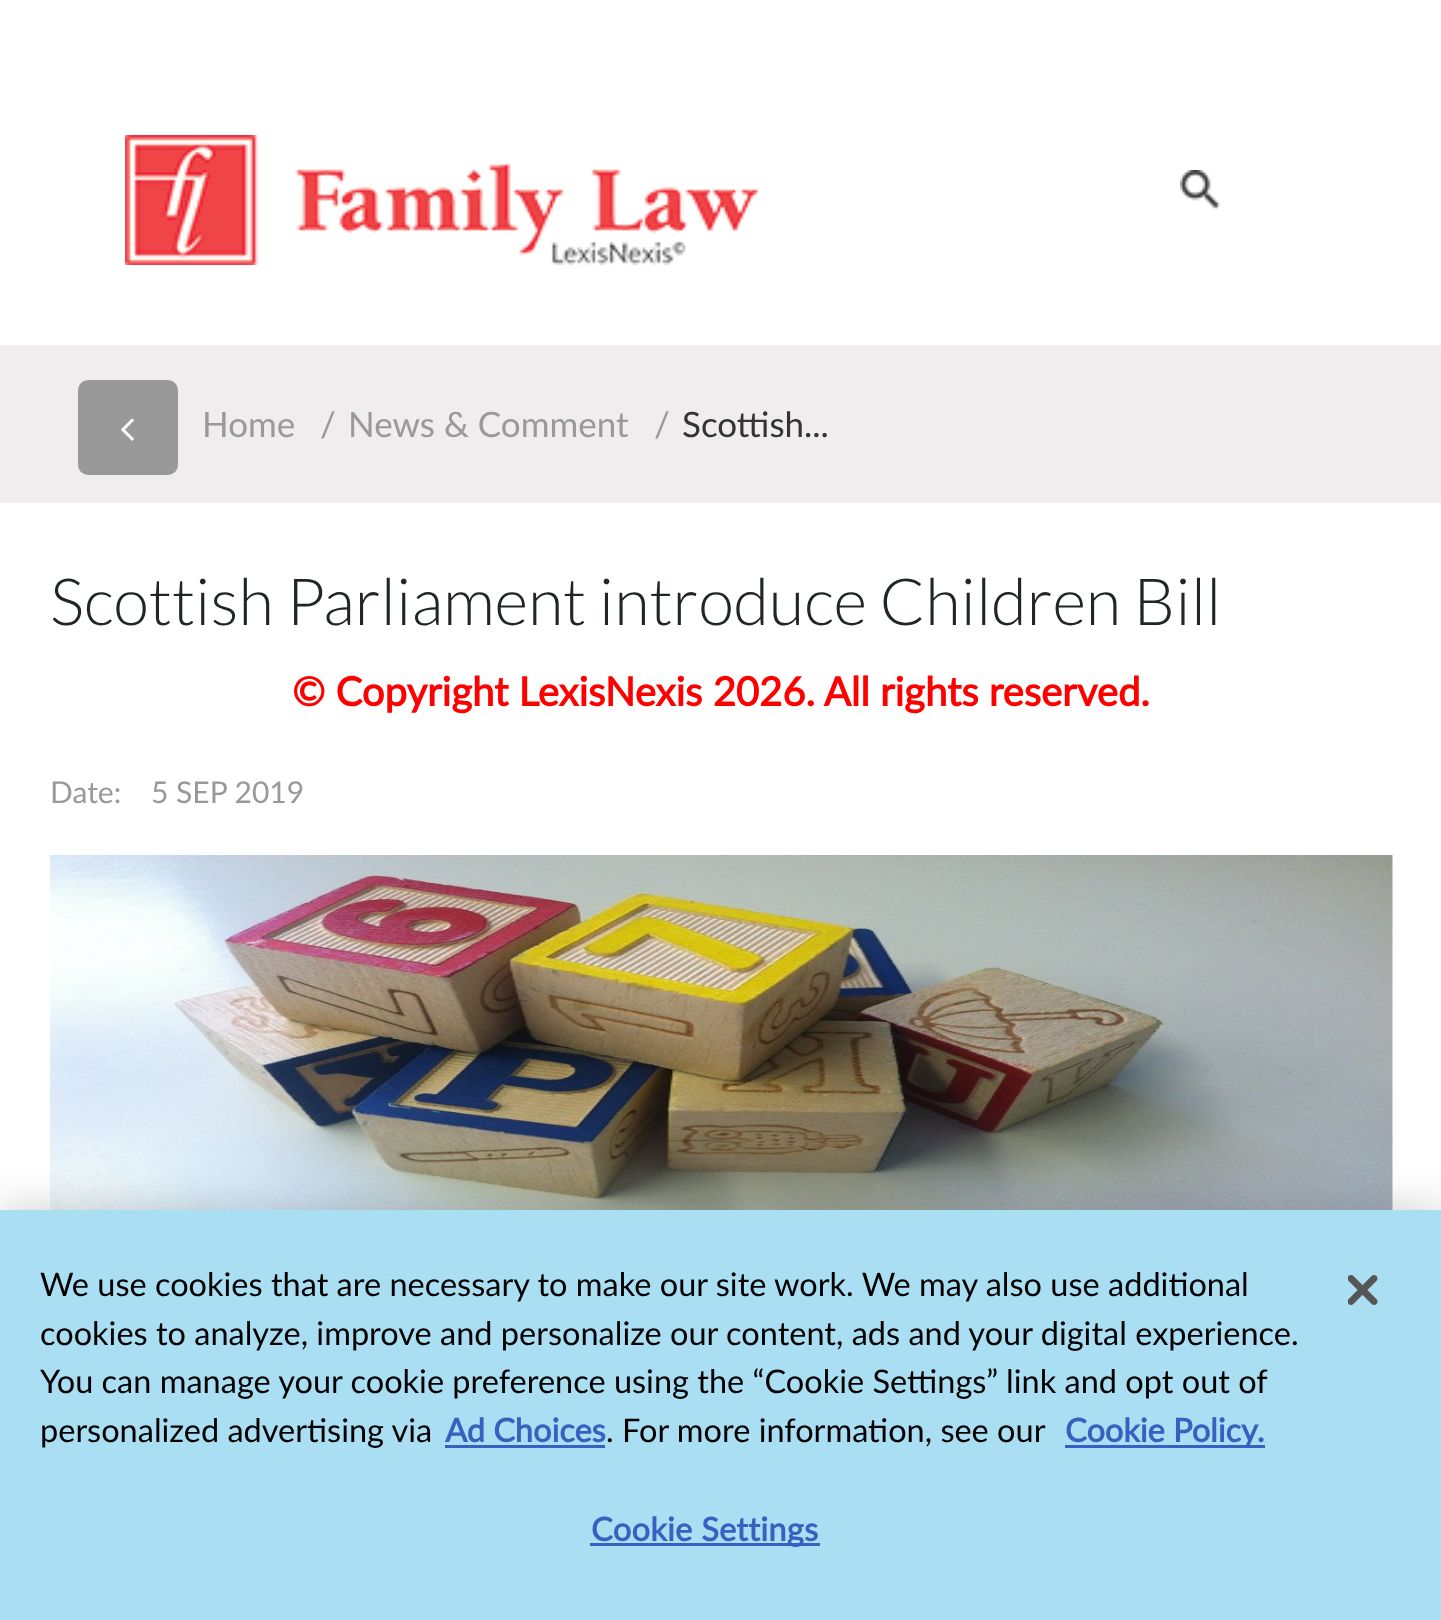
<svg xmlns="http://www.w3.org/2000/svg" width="1441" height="1620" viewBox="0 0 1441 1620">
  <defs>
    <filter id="blur1" x="-50%" y="-200%" width="200%" height="500%"><feGaussianBlur stdDeviation="22.5"/></filter>
  </defs>
  <rect width="100%" height="100%" fill="#ffffff"/>
  <image x="125" y="135" width="633" height="130" href="img1.png"/>
  <image x="1180" y="170" width="40" height="40" href="img2.png"/>
  <rect x="0" y="345" width="1441" height="158" fill="#efedee"/>
  <rect x="79.5" y="381.5" width="97" height="92" rx="8.5" fill="#999999" stroke="#999999" stroke-width="3"/>
  <image x="121" y="418" width="13" height="23" href="img3.png"/>
  <text x="202" y="437" font-family="Lato" font-size="35" fill="#999999">Home</text>
  <text x="320" y="437" font-family="Lato" font-size="35" fill="#999999">/</text>
  <text x="348" y="437" font-family="Lato" font-size="35" fill="#999999">News &amp; Comment</text>
  <text x="654" y="437" font-family="Lato" font-size="35" fill="#999999">/</text>
  <text x="682" y="437" font-family="Lato" font-size="35" fill="#333333">Scottish...</text>
  <text x="50" y="625" font-family="Lato" font-size="65" font-weight="300" fill="#202628">Scottish Parliament introduce Children Bill</text>
  <text x="292" y="706" font-family="Lato" font-size="40" font-weight="bold" fill="#ff0000">© Copyright LexisNexis 2026. All rights reserved.</text>
  <text x="50" y="803" font-family="Lato" font-size="30" fill="#999999">Date:</text>
  <text x="151" y="803" font-family="Lato" font-size="30" fill="#999999">5 SEP 2019</text>
  <image x="50" y="855" width="1343" height="355" href="img4.png"/>
  <rect x="0" y="1210" width="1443" height="410" fill="#000000" fill-opacity="0.2" filter="url(#blur1)"/>
  <rect x="0" y="1210" width="1441" height="410" fill="#aadef3"/>
  <text x="40" y="1296" font-family="Lato" font-size="32.5" fill="#000000">We use cookies that are necessary to make our site work. We may also use additional</text>
  <text x="40" y="1345" font-family="Lato" font-size="32.5" fill="#000000">cookies to analyze, improve and personalize our content, ads and your digital experience.</text>
  <text x="40" y="1393" font-family="Lato" font-size="32.5" fill="#000000">You can manage your cookie preference using the “Cookie Settings” link and opt out of</text>
  <text x="40" y="1442" font-family="Lato" font-size="32.5" fill="#000000">personalized advertising via</text>
  <text x="445" y="1442" font-family="Lato" font-size="32.5" font-weight="bold" fill="#3860be">Ad Choices</text>
  <rect x="445" y="1445" width="160" height="3" fill="#3860be"/>
  <text x="606" y="1442" font-family="Lato" font-size="32.5" fill="#000000">. For more information, see our</text>
  <rect x="1065" y="1445" width="200" height="3" fill="#3860be"/>
  <text x="1065" y="1442" font-family="Lato" font-size="32.5" font-weight="bold" fill="#3860be">Cookie Policy.</text>
  <rect x="590" y="1543" width="230" height="3" fill="#3860be"/>
  <text x="591" y="1541" font-family="Lato" font-size="32.5" font-weight="bold" letter-spacing="0.3" fill="#3860be">Cookie Settings</text>
  <image x="1348" y="1275" width="30" height="30" href="img5.png"/>
</svg>
